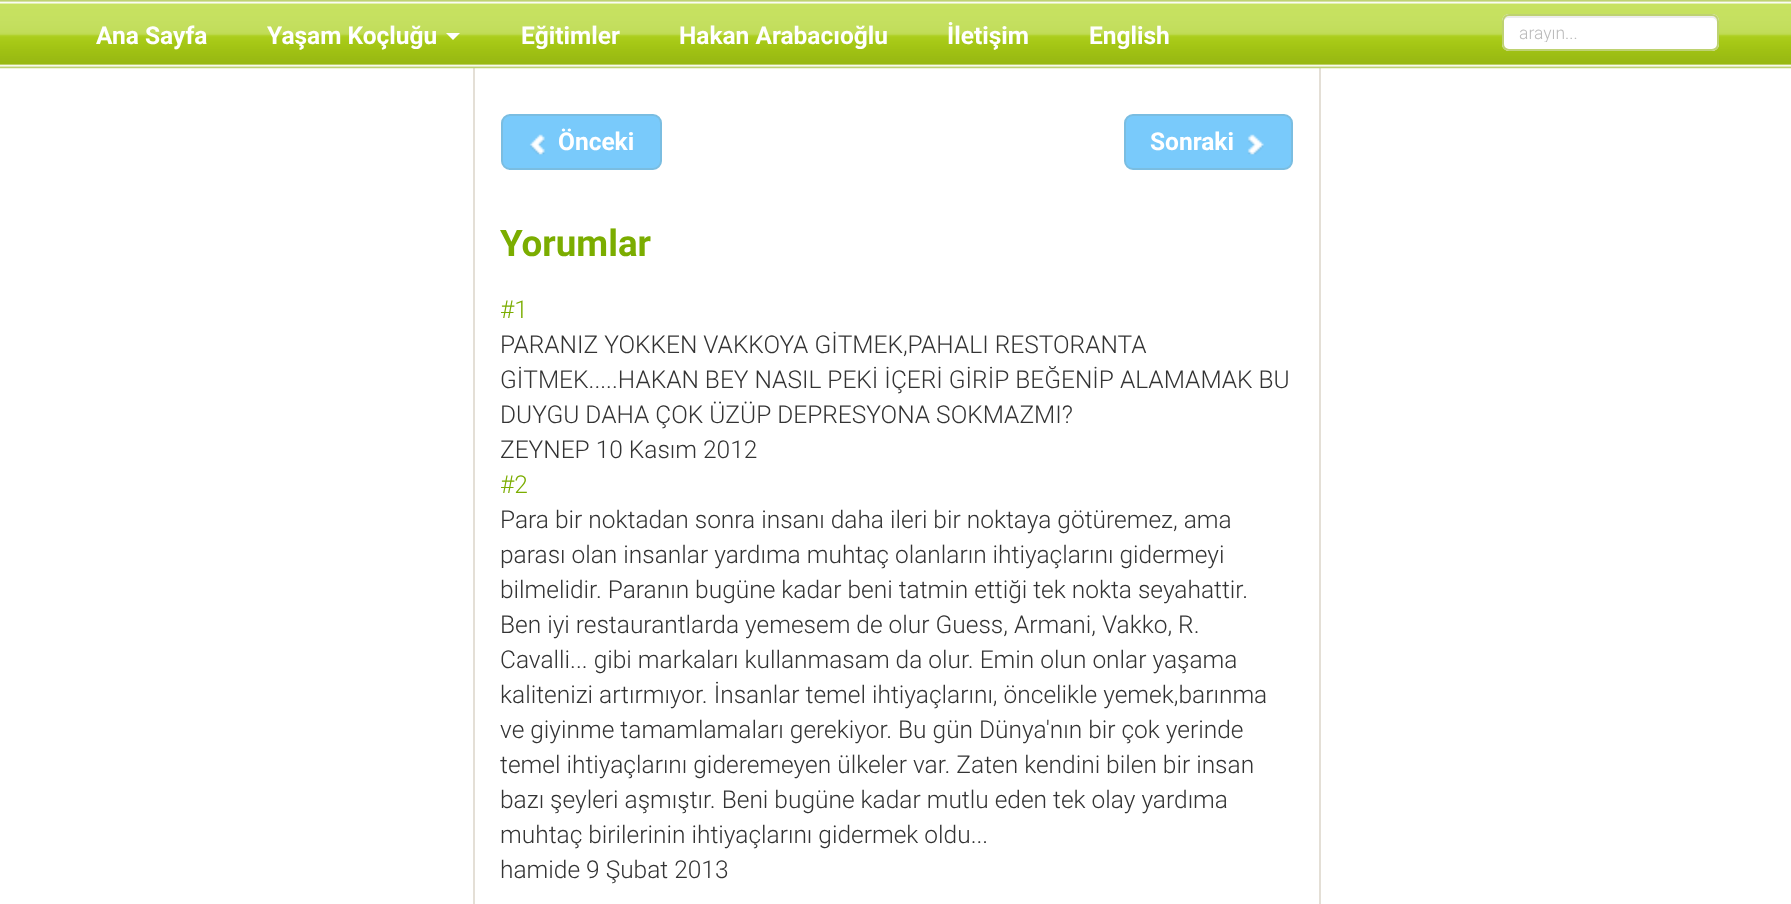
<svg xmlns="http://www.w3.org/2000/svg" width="1791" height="904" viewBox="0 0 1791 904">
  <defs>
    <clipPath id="clip1"><rect x="1510" y="23" width="200" height="19"/></clipPath>
  </defs>
  <rect width="100%" height="100%" fill="#ffffff"/>
  <rect x="474" y="-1" width="846" height="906" fill="none" stroke="#e4dfd6" stroke-width="2"/>
  <image x="0" y="0" width="1791" height="69" href="img1.png"/>
  <text x="96" y="44" font-family="Roboto" font-size="24.5" font-weight="bold" fill="#ffffff">Ana Sayfa</text>
  <text x="267" y="44" font-family="Roboto" font-size="24.5" font-weight="bold" fill="#ffffff">Yaşam Koçluğu</text>
  <path d="M446 33H460L453 40Z" fill="#ffffff"/>
  <text x="521" y="44" font-family="Roboto" font-size="24.5" font-weight="bold" fill="#ffffff">Eğitimler</text>
  <text x="679" y="44" font-family="Roboto" font-size="24.5" font-weight="bold" fill="#ffffff">Hakan Arabacıoğlu</text>
  <text x="947" y="44" font-family="Roboto" font-size="24.5" font-weight="bold" fill="#ffffff">İletişim</text>
  <text x="1089" y="44" font-family="Roboto" font-size="24.5" font-weight="bold" fill="#ffffff">English</text>
  <rect x="1502" y="14" width="217" height="37" rx="7" fill="#ffffff"/>
  <path d="M1508 18H1712C1714 18 1717 20 1717 23V21C1717 18 1715 16 1712 16H1508C1505 16 1503 18 1503 21V23C1503 20 1506 18 1508 18Z" fill="#ececec"/>
  <rect x="1503" y="15" width="215" height="35" rx="6" fill="none" stroke="#bed271" stroke-width="2"/>
  <g clip-path="url(#clip1)">
    <text x="1519" y="39" font-family="Roboto" font-size="17.5" font-weight="300" fill="#bbbbbb">arayın...</text>
  </g>
  <rect x="502" y="115" width="159" height="54" rx="8" fill="#79cafb" stroke="#7abde1" stroke-width="2"/>
  <image x="529" y="134" width="16" height="21" href="img2.png"/>
  <text x="558" y="150" font-family="Roboto" font-size="24.5" font-weight="bold" fill="#ffffff">Önceki</text>
  <rect x="1125" y="115" width="167" height="54" rx="8" fill="#79cafb" stroke="#7abde1" stroke-width="2"/>
  <text x="1150" y="150" font-family="Roboto" font-size="24.5" font-weight="bold" fill="#ffffff">Sonraki</text>
  <image x="1247" y="134" width="17" height="21" href="img3.png"/>
  <text x="500" y="256" font-family="Roboto" font-size="36.75" font-weight="bold" fill="#7bad00">Yorumlar</text>
  <text x="500" y="318" font-family="Roboto" font-size="24.5" font-weight="300" fill="#7bad00">#1</text>
  <text x="500" y="353" font-family="Roboto" font-size="24.5" font-weight="300" fill="#333333">PARANIZ YOKKEN VAKKOYA GİTMEK,PAHALI RESTORANTA</text>
  <text x="500" y="388" font-family="Roboto" font-size="24.5" font-weight="300" fill="#333333">GİTMEK.....HAKAN BEY NASIL PEKİ İÇERİ GİRİP BEĞENİP ALAMAMAK BU</text>
  <text x="500" y="423" font-family="Roboto" font-size="24.5" font-weight="300" fill="#333333">DUYGU DAHA ÇOK ÜZÜP DEPRESYONA SOKMAZMI?</text>
  <text x="500" y="458" font-family="Roboto" font-size="24.5" font-weight="300" fill="#333333">ZEYNEP 10 Kasım 2012</text>
  <text x="500" y="493" font-family="Roboto" font-size="24.5" font-weight="300" fill="#7bad00">#2</text>
  <text x="500" y="528" font-family="Roboto" font-size="24.5" font-weight="300" fill="#333333">Para bir noktadan sonra insanı daha ileri bir noktaya götüremez, ama</text>
  <text x="500" y="563" font-family="Roboto" font-size="24.5" font-weight="300" fill="#333333">parası olan insanlar yardıma muhtaç olanların ihtiyaçlarını gidermeyi</text>
  <text x="500" y="598" font-family="Roboto" font-size="24.5" font-weight="300" fill="#333333">bilmelidir. Paranın bugüne kadar beni tatmin ettiği tek nokta seyahattir.</text>
  <text x="500" y="633" font-family="Roboto" font-size="24.5" font-weight="300" fill="#333333">Ben iyi restaurantlarda yemesem de olur Guess, Armani, Vakko, R.</text>
  <text x="500" y="668" font-family="Roboto" font-size="24.5" font-weight="300" fill="#333333">Cavalli... gibi markaları kullanmasam da olur. Emin olun onlar yaşama</text>
  <text x="500" y="703" font-family="Roboto" font-size="24.5" font-weight="300" fill="#333333">kalitenizi artırmıyor. İnsanlar temel ihtiyaçlarını, öncelikle yemek,barınma</text>
  <text x="500" y="738" font-family="Roboto" font-size="24.5" font-weight="300" fill="#333333">ve giyinme tamamlamaları gerekiyor. Bu gün Dünya'nın bir çok yerinde</text>
  <text x="500" y="773" font-family="Roboto" font-size="24.5" font-weight="300" fill="#333333">temel ihtiyaçlarını gideremeyen ülkeler var. Zaten kendini bilen bir insan</text>
  <text x="500" y="808" font-family="Roboto" font-size="24.5" font-weight="300" fill="#333333">bazı şeyleri aşmıştır. Beni bugüne kadar mutlu eden tek olay yardıma</text>
  <text x="500" y="843" font-family="Roboto" font-size="24.5" font-weight="300" fill="#333333">muhtaç birilerinin ihtiyaçlarını gidermek oldu...</text>
  <text x="500" y="878" font-family="Roboto" font-size="24.5" font-weight="300" fill="#333333">hamide 9 Şubat 2013</text>
</svg>
